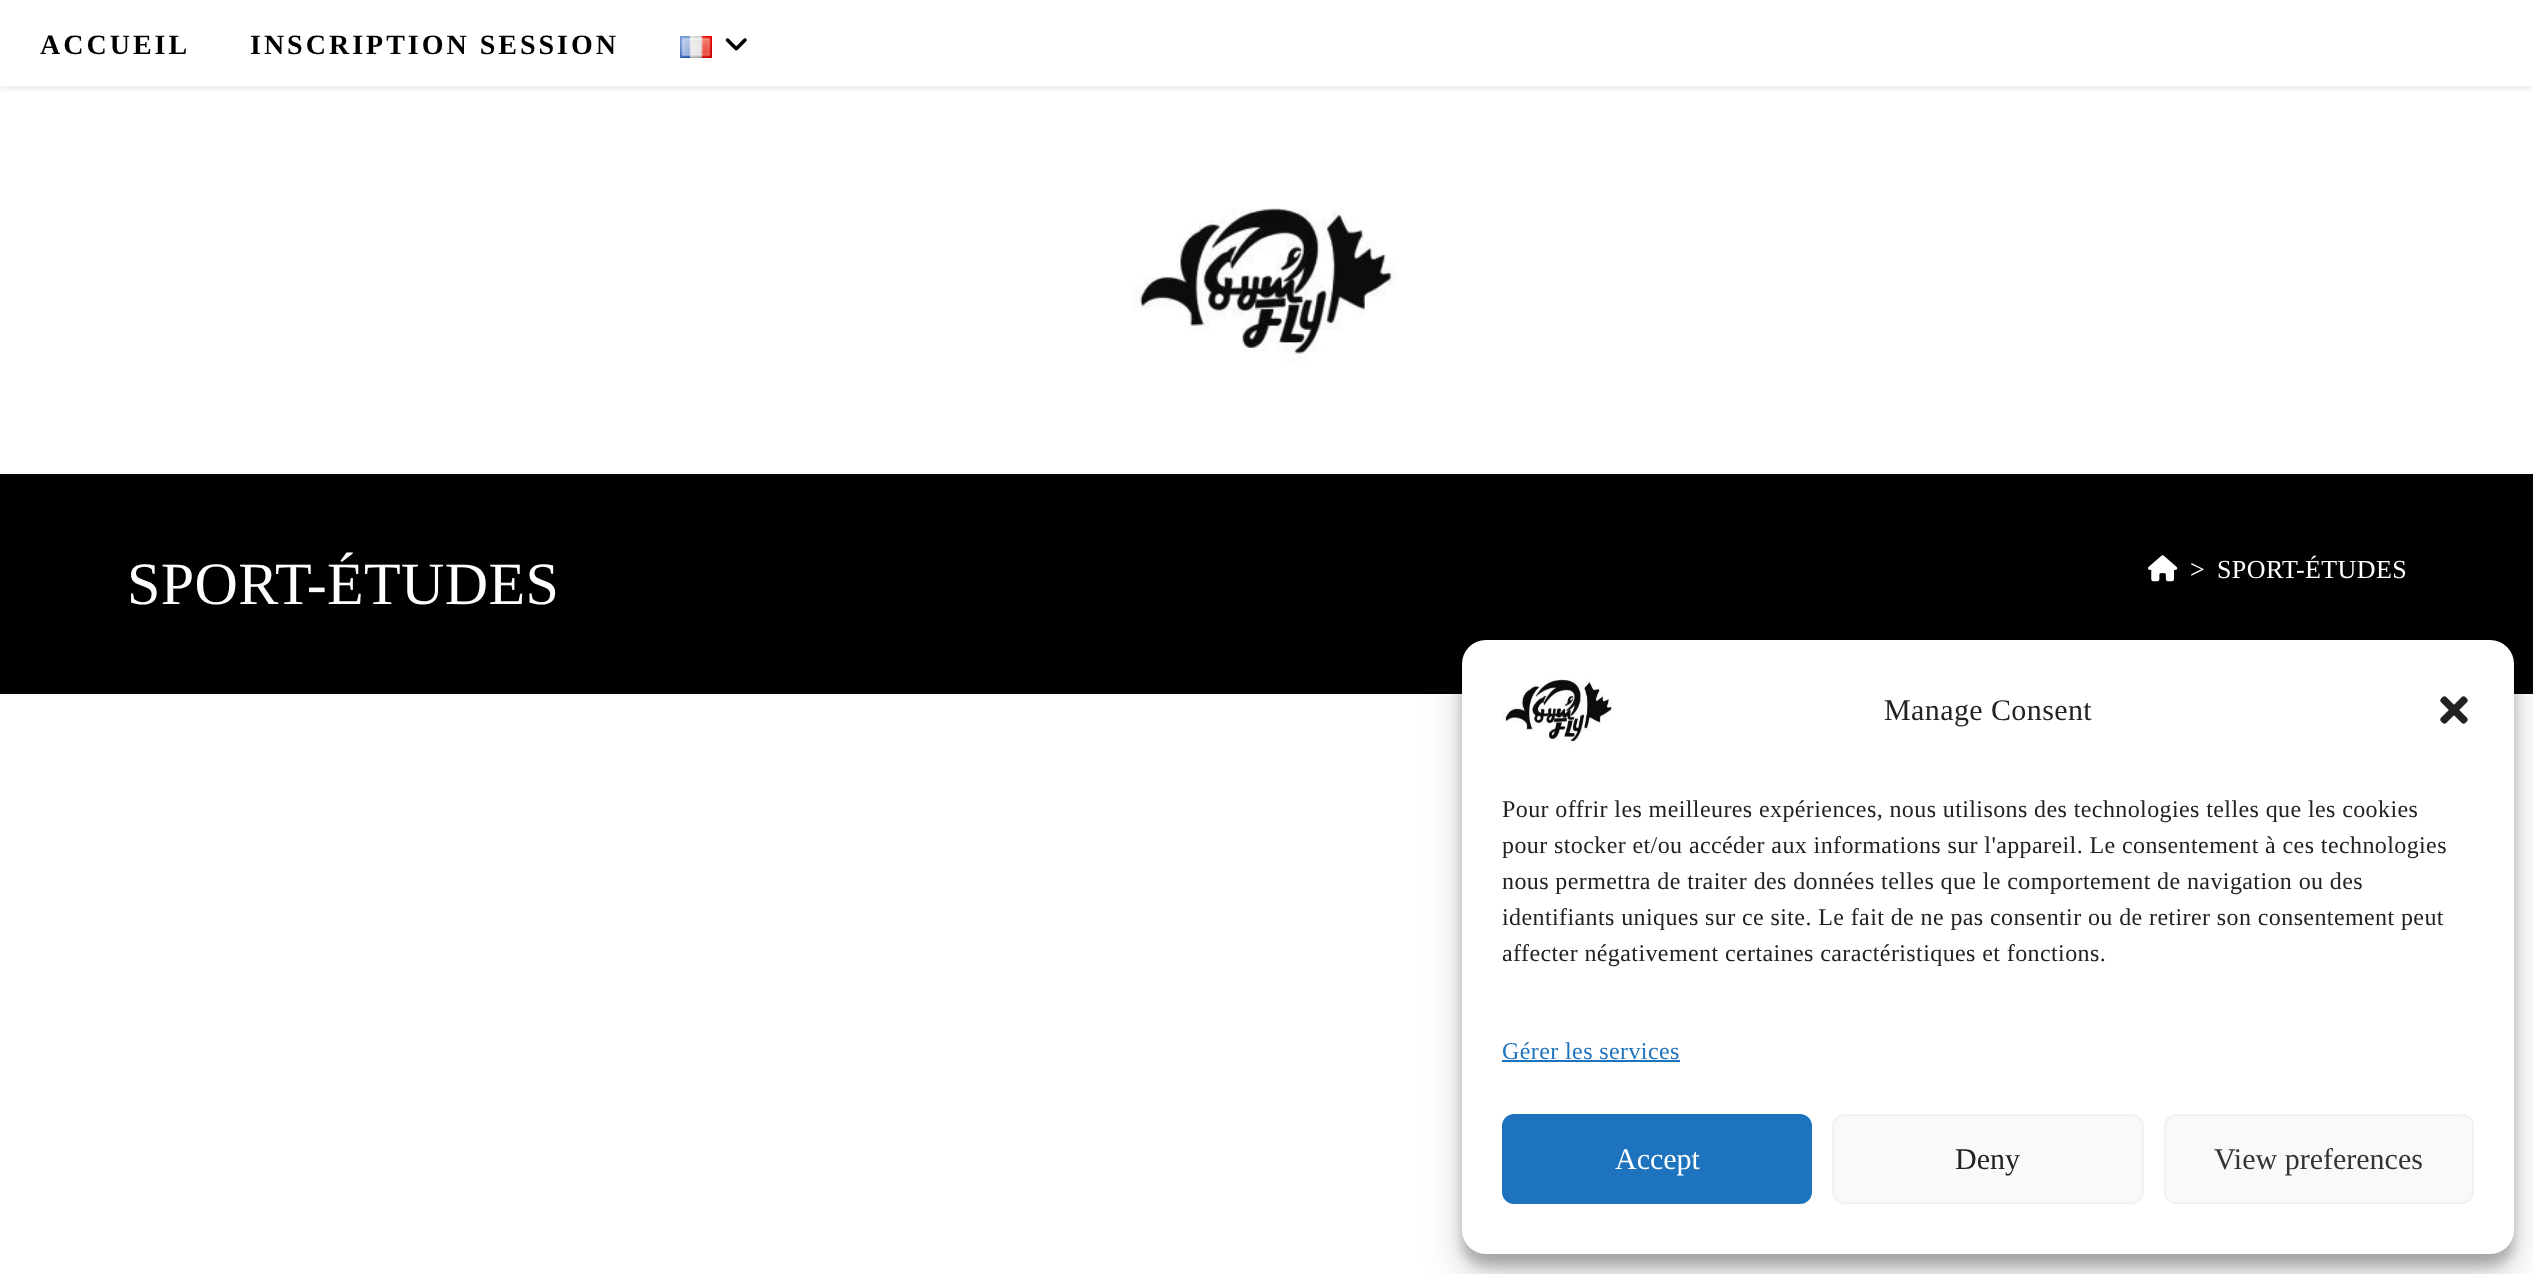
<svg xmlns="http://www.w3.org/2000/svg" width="2533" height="1274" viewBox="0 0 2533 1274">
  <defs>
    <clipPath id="clip1"><rect x="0" y="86" width="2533" height="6"/></clipPath>
    <filter id="blur1" x="-50%" y="-200%" width="200%" height="500%"><feGaussianBlur stdDeviation="5"/></filter>
    <filter id="blur2" x="-50%" y="-200%" width="200%" height="500%"><feGaussianBlur stdDeviation="6"/></filter>
    <filter id="blur3" x="-50%" y="-200%" width="200%" height="500%"><feGaussianBlur stdDeviation="20"/></filter>
  </defs>
  <rect width="100%" height="100%" fill="#ffffff"/>
  <g clip-path="url(#clip1)">
    <rect x="0" y="2" width="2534" height="86" fill="#000000" fill-opacity="0.1" filter="url(#blur1)"/>
  </g>
  <text x="40" y="54" font-family="Liberation Serif" font-size="28" font-weight="bold" letter-spacing="3" fill="#000000">ACCUEIL</text>
  <text x="250" y="54" font-family="Liberation Serif" font-size="28" font-weight="bold" letter-spacing="3" fill="#000000">INSCRIPTION SESSION</text>
  <image x="680" y="36" width="32" height="22" href="img1.png"/>
  <image x="725" y="38" width="22" height="13" href="img2.png"/>
  <image x="1132" y="208" width="266" height="155" href="img3.png"/>
  <rect x="0" y="474" width="2533" height="220" fill="#000000"/>
  <text x="127" y="604" font-family="Liberation Serif" font-size="60" letter-spacing="0.4" fill="#ffffff">SPORT-ÉTUDES</text>
  <image x="2148" y="555" width="30" height="27" href="img4.png"/>
  <text x="2190" y="578" font-family="Liberation Serif" font-size="26" letter-spacing="0.4" fill="#ffffff">&gt;</text>
  <text x="2217" y="578" font-family="Liberation Serif" font-size="26" letter-spacing="0.4" fill="#ffffff">SPORT-ÉTUDES</text>
  <rect x="1462" y="652" width="1052" height="614" rx="24" fill="#000000" fill-opacity="0.23" filter="url(#blur2)"/>
  <rect x="1462" y="660" width="1052" height="614" rx="24" fill="#000000" fill-opacity="0.19" filter="url(#blur3)"/>
  <rect x="1462" y="640" width="1052" height="614" rx="24" fill="#ffffff"/>
  <image x="1503" y="679" width="111" height="66" href="img5.png"/>
  <text x="1884" y="720" font-family="Liberation Serif" font-size="30" letter-spacing="0.4" fill="#222222">Manage Consent</text>
  <image x="2440" y="696" width="28" height="28" href="img6.png"/>
  <text x="1502" y="817" font-family="Liberation Serif" font-size="24" letter-spacing="0.4" fill="#222222">Pour offrir les meilleures expériences, nous utilisons des technologies telles que les cookies</text>
  <text x="1502" y="853" font-family="Liberation Serif" font-size="24" letter-spacing="0.4" fill="#222222">pour stocker et/ou accéder aux informations sur l'appareil. Le consentement à ces technologies</text>
  <text x="1502" y="889" font-family="Liberation Serif" font-size="24" letter-spacing="0.4" fill="#222222">nous permettra de traiter des données telles que le comportement de navigation ou des</text>
  <text x="1502" y="925" font-family="Liberation Serif" font-size="24" letter-spacing="0.4" fill="#222222">identifiants uniques sur ce site. Le fait de ne pas consentir ou de retirer son consentement peut</text>
  <text x="1502" y="961" font-family="Liberation Serif" font-size="24" letter-spacing="0.4" fill="#222222">affecter négativement certaines caractéristiques et fonctions.</text>
  <text x="1502" y="1059" font-family="Liberation Serif" font-size="24" letter-spacing="0.4" fill="#1e73be">Gérer les services</text>
  <rect x="1502" y="1060" width="178" height="2" fill="#1e73be"/>
  <rect x="1503" y="1115" width="308" height="88" rx="11" fill="#1e73be" stroke="#1e73be" stroke-width="2"/>
  <text x="1615" y="1169" font-family="Liberation Serif" font-size="30" fill="#ffffff">Accept</text>
  <rect x="1833" y="1115" width="310" height="88" rx="11" fill="#f9f9f9" stroke="#f2f2f2" stroke-width="2"/>
  <text x="1955" y="1169" font-family="Liberation Serif" font-size="30" fill="#222222">Deny</text>
  <rect x="2165" y="1115" width="308" height="88" rx="11" fill="#f9f9f9" stroke="#f2f2f2" stroke-width="2"/>
  <text x="2214" y="1169" font-family="Liberation Serif" font-size="30" fill="#333333">View preferences</text>
</svg>
